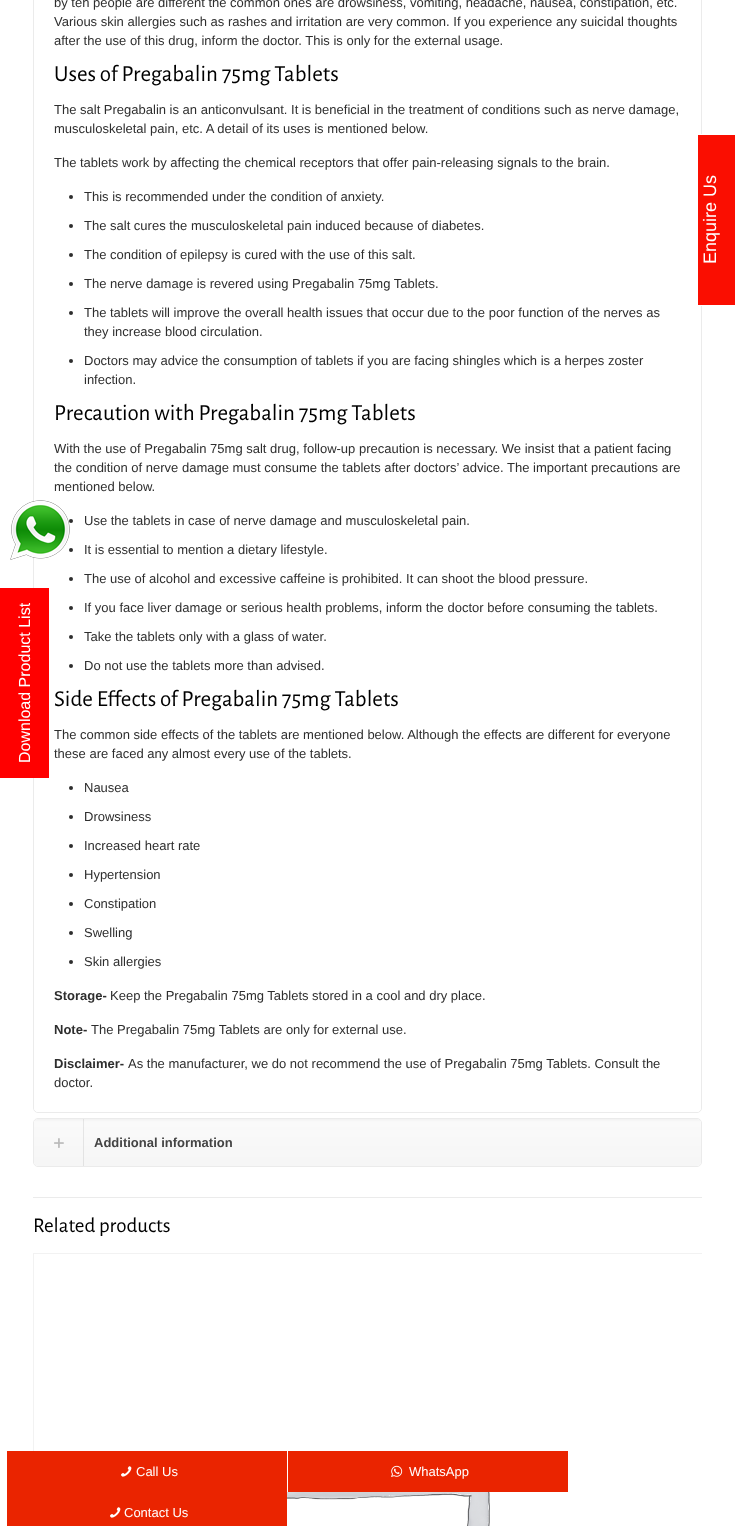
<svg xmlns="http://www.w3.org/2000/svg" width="735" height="1526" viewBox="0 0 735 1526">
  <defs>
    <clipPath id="clip1"><rect x="33" y="1253" width="669" height="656"/></clipPath>
  </defs>
  <rect width="100%" height="100%" fill="#ffffff"/>
  <rect x="33.5" y="-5.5" width="668" height="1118" rx="4.5" fill="none" stroke="#ebebeb"/>
  <path d="M34-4H701V1108C701 1110 699 1112 697 1112H38C36 1112 34 1110 34 1108Z" fill="#ffffff"/>
  <text x="54" y="7" font-family="Liberation Sans" font-size="13" fill="#2e2e2e">by teh people are different the common ones are drowsiness, vomiting, headache, nausea, constipation, etc.</text>
  <text x="54" y="26" font-family="Liberation Sans" font-size="13" fill="#2e2e2e">Various skin allergies such as rashes and irritation are very common. If you experience any suicidal thoughts</text>
  <text x="54" y="45" font-family="Liberation Sans" font-size="13" fill="#2e2e2e">after the use of this drug, inform the doctor. This is only for the external usage.</text>
  <text x="54" y="81" font-family="Alegreya Sans" font-size="23" fill="#000000">Uses of Pregabalin 75mg Tablets</text>
  <text x="54" y="114" font-family="Liberation Sans" font-size="13" fill="#2e2e2e">The salt Pregabalin is an anticonvulsant. It is beneficial in the treatment of conditions such as nerve damage,</text>
  <text x="54" y="133" font-family="Liberation Sans" font-size="13" fill="#2e2e2e">musculoskeletal pain, etc. A detail of its uses is mentioned below.</text>
  <text x="54" y="167" font-family="Liberation Sans" font-size="13" fill="#2e2e2e">The tablets work by affecting the chemical receptors that offer pain-releasing signals to the brain.</text>
  <circle cx="71" cy="197" r="2" fill="#2e2e2e"/>
  <text x="84" y="201" font-family="Liberation Sans" font-size="13" fill="#2e2e2e">This is recommended under the condition of anxiety.</text>
  <circle cx="71" cy="226" r="2" fill="#2e2e2e"/>
  <text x="84" y="230" font-family="Liberation Sans" font-size="13" fill="#2e2e2e">The salt cures the musculoskeletal pain induced because of diabetes.</text>
  <circle cx="71" cy="255" r="2" fill="#2e2e2e"/>
  <text x="84" y="259" font-family="Liberation Sans" font-size="13" fill="#2e2e2e">The condition of epilepsy is cured with the use of this salt.</text>
  <circle cx="71" cy="284" r="2" fill="#2e2e2e"/>
  <text x="84" y="288" font-family="Liberation Sans" font-size="13" fill="#2e2e2e">The nerve damage is revered using Pregabalin 75mg Tablets.</text>
  <circle cx="71" cy="313" r="2" fill="#2e2e2e"/>
  <text x="84" y="317" font-family="Liberation Sans" font-size="13" fill="#2e2e2e">The tablets will improve the overall health issues that occur due to the poor function of the nerves as</text>
  <text x="84" y="336" font-family="Liberation Sans" font-size="13" fill="#2e2e2e">they increase blood circulation.</text>
  <circle cx="71" cy="361" r="2" fill="#2e2e2e"/>
  <text x="84" y="365" font-family="Liberation Sans" font-size="13" fill="#2e2e2e">Doctors may advice the consumption of tablets if you are facing shingles which is a herpes zoster</text>
  <text x="84" y="384" font-family="Liberation Sans" font-size="13" fill="#2e2e2e">infection.</text>
  <text x="54" y="420" font-family="Alegreya Sans" font-size="23" fill="#000000">Precaution with Pregabalin 75mg Tablets</text>
  <text x="54" y="453" font-family="Liberation Sans" font-size="13" fill="#2e2e2e">With the use of Pregabalin 75mg salt drug, follow-up precaution is necessary. We insist that a patient facing</text>
  <text x="54" y="472" font-family="Liberation Sans" font-size="13" fill="#2e2e2e">the condition of nerve damage must consume the tablets after doctors’ advice. The important precautions are</text>
  <text x="54" y="491" font-family="Liberation Sans" font-size="13" fill="#2e2e2e">mentioned below.</text>
  <circle cx="71" cy="521" r="2" fill="#2e2e2e"/>
  <text x="84" y="525" font-family="Liberation Sans" font-size="13" fill="#2e2e2e">Use the tablets in case of nerve damage and musculoskeletal pain.</text>
  <circle cx="71" cy="550" r="2" fill="#2e2e2e"/>
  <text x="84" y="554" font-family="Liberation Sans" font-size="13" fill="#2e2e2e">It is essential to mention a dietary lifestyle.</text>
  <circle cx="71" cy="579" r="2" fill="#2e2e2e"/>
  <text x="84" y="583" font-family="Liberation Sans" font-size="13" fill="#2e2e2e">The use of alcohol and excessive caffeine is prohibited. It can shoot the blood pressure.</text>
  <circle cx="71" cy="608" r="2" fill="#2e2e2e"/>
  <text x="84" y="612" font-family="Liberation Sans" font-size="13" fill="#2e2e2e">If you face liver damage or serious health problems, inform the doctor before consuming the tablets.</text>
  <circle cx="71" cy="637" r="2" fill="#2e2e2e"/>
  <text x="84" y="641" font-family="Liberation Sans" font-size="13" fill="#2e2e2e">Take the tablets only with a glass of water.</text>
  <circle cx="71" cy="666" r="2" fill="#2e2e2e"/>
  <text x="84" y="670" font-family="Liberation Sans" font-size="13" fill="#2e2e2e">Do not use the tablets more than advised.</text>
  <text x="54" y="706" font-family="Alegreya Sans" font-size="23" fill="#000000">Side Effects of Pregabalin 75mg Tablets</text>
  <text x="54" y="739" font-family="Liberation Sans" font-size="13" fill="#2e2e2e">The common side effects of the tablets are mentioned below. Although the effects are different for everyone</text>
  <text x="54" y="758" font-family="Liberation Sans" font-size="13" fill="#2e2e2e">these are faced any almost every use of the tablets.</text>
  <circle cx="71" cy="788" r="2" fill="#2e2e2e"/>
  <text x="84" y="792" font-family="Liberation Sans" font-size="13" fill="#2e2e2e">Nausea</text>
  <circle cx="71" cy="817" r="2" fill="#2e2e2e"/>
  <text x="84" y="821" font-family="Liberation Sans" font-size="13" fill="#2e2e2e">Drowsiness</text>
  <circle cx="71" cy="846" r="2" fill="#2e2e2e"/>
  <text x="84" y="850" font-family="Liberation Sans" font-size="13" fill="#2e2e2e">Increased heart rate</text>
  <circle cx="71" cy="875" r="2" fill="#2e2e2e"/>
  <text x="84" y="879" font-family="Liberation Sans" font-size="13" fill="#2e2e2e">Hypertension</text>
  <circle cx="71" cy="904" r="2" fill="#2e2e2e"/>
  <text x="84" y="908" font-family="Liberation Sans" font-size="13" fill="#2e2e2e">Constipation</text>
  <circle cx="71" cy="933" r="2" fill="#2e2e2e"/>
  <text x="84" y="937" font-family="Liberation Sans" font-size="13" fill="#2e2e2e">Swelling</text>
  <circle cx="71" cy="962" r="2" fill="#2e2e2e"/>
  <text x="84" y="966" font-family="Liberation Sans" font-size="13" fill="#2e2e2e">Skin allergies</text>
  <text x="54" y="1000" font-family="Liberation Sans" font-size="13" font-weight="bold" fill="#2e2e2e">Storage-</text>
  <text x="110" y="1000" font-family="Liberation Sans" font-size="13" fill="#2e2e2e">Keep the Pregabalin 75mg Tablets stored in a cool and dry place.</text>
  <text x="54" y="1034" font-family="Liberation Sans" font-size="13" font-weight="bold" fill="#2e2e2e">Note-</text>
  <text x="91" y="1034" font-family="Liberation Sans" font-size="13" fill="#2e2e2e">The Pregabalin 75mg Tablets are only for external use.</text>
  <text x="54" y="1068" font-family="Liberation Sans" font-size="13" font-weight="bold" fill="#2e2e2e">Disclaimer-</text>
  <text x="128" y="1068" font-family="Liberation Sans" font-size="13" fill="#2e2e2e">As the manufacturer, we do not recommend the use of Pregabalin 75mg Tablets. Consult the</text>
  <text x="54" y="1087" font-family="Liberation Sans" font-size="13" fill="#2e2e2e">doctor.</text>
  <rect x="33.5" y="1118.5" width="668" height="48" rx="4.5" fill="none" stroke="#ebebeb"/>
  <image x="34" y="1119" width="667" height="47" href="img1.png"/>
  <image x="54" y="1138" width="10" height="10" href="img2.png"/>
  <rect x="83" y="1119" width="1" height="47" fill="#000000" fill-opacity="0.08"/>
  <text x="94" y="1147" font-family="Liberation Sans" font-size="13" font-weight="bold" fill="#444444">Additional information</text>
  <rect x="33" y="1197" width="669" height="1" fill="#ebebeb"/>
  <text x="33" y="1232" font-family="Alegreya Sans" font-size="21" fill="#000000">Related products</text>
  <g clip-path="url(#clip1)">
    <rect x="33.5" y="1253.5" width="670" height="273" fill="none" stroke="#f2f2f2"/>
  </g>
  <image x="287" y="1492" width="203" height="34" href="img3.png"/>
  <rect x="698" y="135" width="37" height="170" fill="#fa0e01"/>
  <rect x="698" y="134" width="4" height="1" fill="#ffffff"/>
  <rect x="698" y="305" width="4" height="1" fill="#ffffff"/>
  <text x="716" y="264" transform="rotate(-90 716 264)" font-family="Liberation Sans" font-size="18" fill="#ffffff">Enquire Us</text>
  <image x="10" y="500" width="60" height="60" href="img4.png"/>
  <rect x="0" y="588" width="49" height="190" fill="#ff0000"/>
  <text x="30" y="763" transform="rotate(-90 30 763)" font-family="Liberation Sans" font-size="16" fill="#ffffff">Download Product List</text>
  <rect x="7" y="1451" width="280" height="75" fill="#ea2400"/>
  <image x="121" y="1466" width="11" height="11" href="img5.png"/>
  <text x="136" y="1476" font-family="Liberation Sans" font-size="13" fill="#ffffff">Call Us</text>
  <rect x="288" y="1451" width="280" height="41" fill="#ea2400"/>
  <image x="391" y="1465" width="12" height="12" href="img6.png"/>
  <text x="409" y="1476" font-family="Liberation Sans" font-size="13" fill="#ffffff">WhatsApp</text>
  <image x="110" y="1507" width="11" height="11" href="img5.png"/>
  <text x="124" y="1517" font-family="Liberation Sans" font-size="13" fill="#ffffff">Contact Us</text>
</svg>
